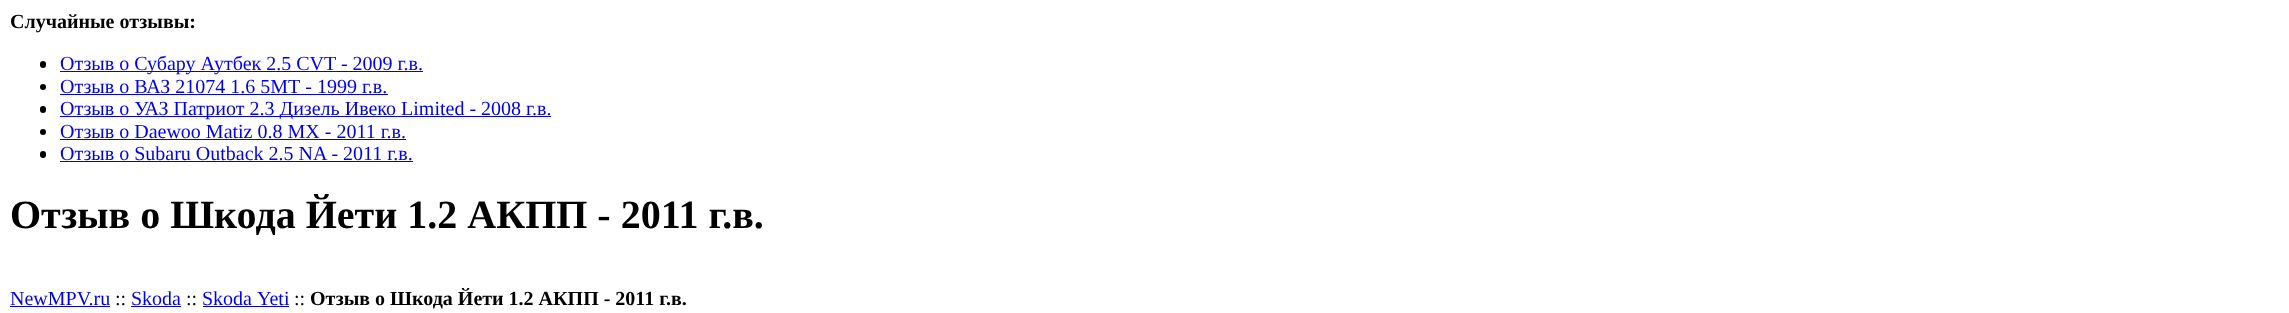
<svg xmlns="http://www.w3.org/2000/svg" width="2289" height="313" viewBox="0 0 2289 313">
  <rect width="100%" height="100%" fill="#ffffff"/>
  <text x="10" y="28" font-family="Liberation Serif" font-size="20" font-weight="bold" fill="#000000">Случайные отзывы:</text>
  <rect x="40" y="61" width="6" height="7" rx="3" fill="#000000"/>
  <rect x="60" y="71" width="363" height="1" fill="#0000ee"/>
  <text x="60" y="70" font-family="Liberation Serif" font-size="20" fill="#0000ee">Отзыв о Субару Аутбек 2.5 CVT - 2009 г.в.</text>
  <circle cx="43" cy="87" r="3" fill="#000000"/>
  <text x="60" y="93" font-family="Liberation Serif" font-size="20" fill="#0000ee">Отзыв о ВАЗ 21074 1.6 5МТ - 1999 г.в.</text>
  <rect x="60" y="94" width="328" height="1" fill="#0000ee"/>
  <rect x="40" y="106" width="6" height="7" rx="3" fill="#000000"/>
  <rect x="60" y="116" width="491" height="1" fill="#0000ee"/>
  <text x="60" y="115" font-family="Liberation Serif" font-size="20" fill="#0000ee">Отзыв о УАЗ Патриот 2.3 Дизель Ивеко Limited - 2008 г.в.</text>
  <circle cx="43" cy="132" r="3" fill="#000000"/>
  <text x="60" y="138" font-family="Liberation Serif" font-size="20" fill="#0000ee">Отзыв о Daewoo Matiz 0.8 MX - 2011 г.в.</text>
  <rect x="60" y="139" width="346" height="1" fill="#0000ee"/>
  <rect x="40" y="151" width="6" height="7" rx="3" fill="#000000"/>
  <text x="60" y="160" font-family="Liberation Serif" font-size="20" fill="#0000ee">Отзыв о Subaru Outback 2.5 NA - 2011 г.в.</text>
  <rect x="60" y="161" width="353" height="1" fill="#0000ee"/>
  <text x="10" y="228" font-family="Liberation Serif" font-size="40" font-weight="bold" fill="#000000">Отзыв о Шкода Йети 1.2 АКПП - 2011 г.в.</text>
  <text x="10" y="305" font-family="Liberation Serif" font-size="20" fill="#0000ee">NewMPV.ru</text>
  <rect x="10" y="306" width="100" height="1" fill="#0000ee"/>
  <text x="115" y="305" font-family="Liberation Serif" font-size="20" fill="#000000">::</text>
  <text x="131" y="305" font-family="Liberation Serif" font-size="20" fill="#0000ee">Skoda</text>
  <rect x="131" y="306" width="50" height="1" fill="#0000ee"/>
  <text x="186" y="305" font-family="Liberation Serif" font-size="20" fill="#000000">::</text>
  <text x="202" y="305" font-family="Liberation Serif" font-size="20" fill="#0000ee">Skoda</text>
  <rect x="203" y="306" width="86" height="1" fill="#0000ee"/>
  <text x="257" y="305" font-family="Liberation Serif" font-size="20" fill="#0000ee">Yeti</text>
  <text x="294" y="305" font-family="Liberation Serif" font-size="20" fill="#000000">::</text>
  <text x="310" y="305" font-family="Liberation Serif" font-size="20" font-weight="bold" fill="#000000">Отзыв о Шкода Йети 1.2 АКПП - 2011 г.в.</text>
</svg>
